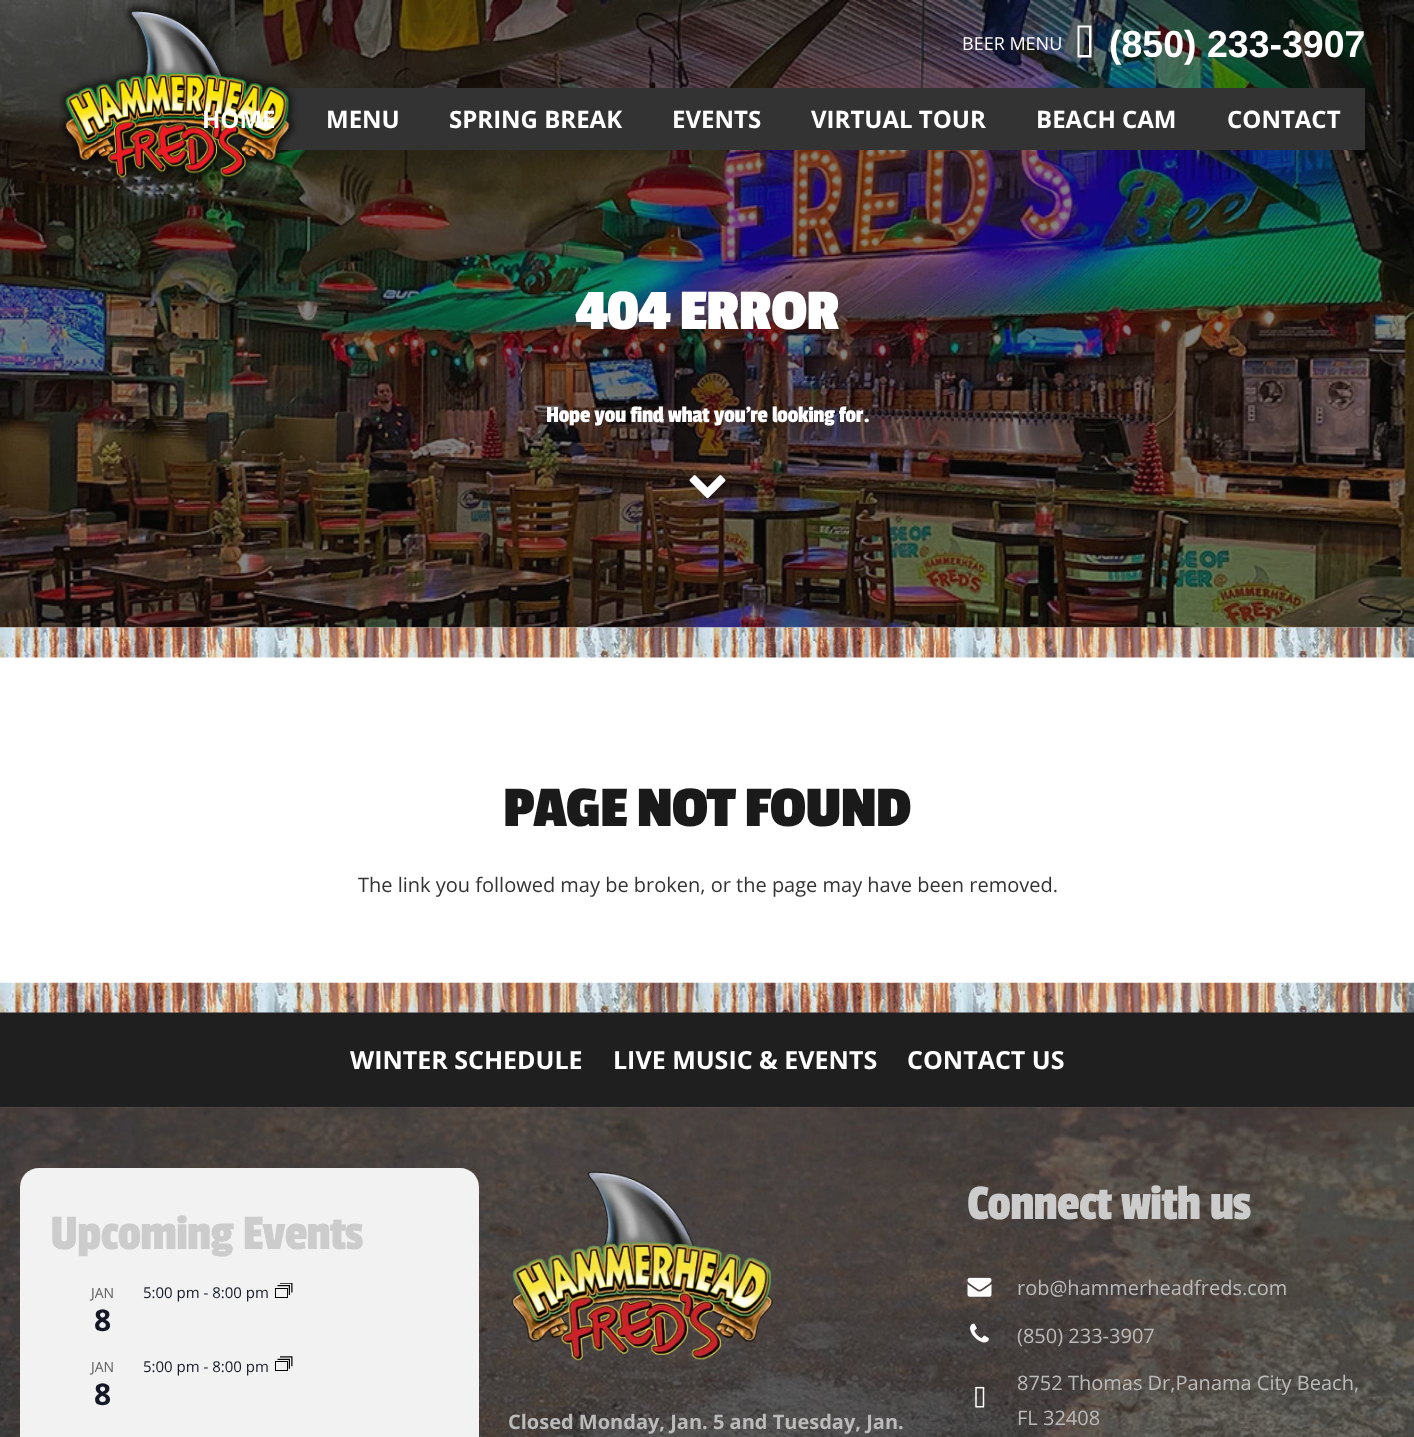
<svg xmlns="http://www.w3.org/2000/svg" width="1414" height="1437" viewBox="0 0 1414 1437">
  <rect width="100%" height="100%" fill="#ffffff"/>
  <image x="0" y="0" width="1414" height="628" href="img2.png"/>
  <rect x="178" y="88" width="1187" height="62" fill="#333333"/>
  <image x="59" y="3" width="238" height="181" href="img1.png"/>
  <text x="962" y="50" font-family="Open Sans" font-size="18" fill="#ffffff">BEER MENU</text>
  <path d="M1079.5 55V27.5H1089V55ZM1077.5 57.5H1091.5V25.5H1077.5Z" fill="#ffffff"/>
  <text x="1109" y="57" font-family="Liberation Sans" font-size="37.5" font-weight="bold" fill="#ffffff">(850) 233-3907</text>
  <text x="202" y="128" font-family="Open Sans" font-size="24" font-weight="bold" fill="#ffffff">HOME</text>
  <text x="326" y="128" font-family="Open Sans" font-size="24" font-weight="bold" fill="#ffffff">MENU</text>
  <text x="449" y="128" font-family="Open Sans" font-size="24" font-weight="bold" fill="#ffffff">SPRING BREAK</text>
  <text x="672" y="128" font-family="Open Sans" font-size="24" font-weight="bold" fill="#ffffff">EVENTS</text>
  <text x="811" y="128" font-family="Open Sans" font-size="24" font-weight="bold" fill="#ffffff">VIRTUAL TOUR</text>
  <text x="1036" y="128" font-family="Open Sans" font-size="24" font-weight="bold" fill="#ffffff">BEACH CAM</text>
  <text x="1227" y="128" font-family="Open Sans" font-size="24" font-weight="bold" fill="#ffffff">CONTACT</text>
  <text x="575" y="329" font-family="Passion One" font-size="60" font-weight="bold" letter-spacing="-1.25" fill="#ffffff">404 ERROR</text>
  <text x="546" y="422" font-family="Passion One" font-size="24" letter-spacing="-0.5" fill="#ffffff">Hope you find what you’re looking for.</text>
  <image x="689" y="475" width="37" height="24" href="img3.png"/>
  <image x="0" y="627" width="1414" height="31" href="img4.png"/>
  <text x="503" y="826" font-family="Passion One" font-size="60" font-weight="bold" letter-spacing="-1.25" fill="#1a1a1a">PAGE NOT FOUND</text>
  <text x="358" y="892" font-family="Open Sans" font-size="20" fill="#333333">The link you followed may be broken, or the page may have been removed.</text>
  <rect x="0" y="1012" width="1414" height="1" fill="#222222"/>
  <image x="0" y="982" width="1414" height="31" href="img5.png"/>
  <rect x="0" y="1013" width="1414" height="95" fill="#1f1f1f"/>
  <text x="350" y="1069" font-family="Open Sans" font-size="25" font-weight="bold" fill="#ffffff">WINTER SCHEDULE</text>
  <text x="613" y="1069" font-family="Open Sans" font-size="25" font-weight="bold" fill="#ffffff">LIVE MUSIC &amp; EVENTS</text>
  <text x="907" y="1069" font-family="Open Sans" font-size="25" font-weight="bold" fill="#ffffff">CONTACT US</text>
  <image x="0" y="1107" width="1414" height="330" href="img6.png"/>
  <rect x="20" y="1168" width="459" height="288" rx="19" fill="#f2f2f2"/>
  <text x="50" y="1249" font-family="Passion One" font-size="52" letter-spacing="-1" fill="#cccccc">Upcoming Events</text>
  <text x="91" y="1298" font-family="Open Sans" font-size="14" fill="#5d5d5d">JAN</text>
  <text x="94" y="1331" font-family="Open Sans" font-size="30" font-weight="bold" fill="#141827">8</text>
  <text x="143" y="1298" font-family="Open Sans" font-size="15" fill="#141827">5:00 pm - 8:00 pm</text>
  <image x="275" y="1283" width="18" height="15" href="img7.png"/>
  <text x="91" y="1372" font-family="Open Sans" font-size="14" fill="#5d5d5d">JAN</text>
  <text x="94" y="1405" font-family="Open Sans" font-size="30" font-weight="bold" fill="#141827">8</text>
  <text x="143" y="1372" font-family="Open Sans" font-size="15" fill="#141827">5:00 pm - 8:00 pm</text>
  <image x="275" y="1356" width="18" height="15" href="img8.png"/>
  <text x="967" y="1219" font-family="Passion One" font-size="52" letter-spacing="-1" fill="#cccccc">Connect with us</text>
  <image x="967" y="1277" width="25" height="20" href="img9.png"/>
  <text x="1017" y="1295" font-family="Open Sans" font-size="20" fill="#bbbbbb">rob@hammerheadfreds.com</text>
  <image x="970" y="1323" width="19" height="20" href="img10.png"/>
  <text x="1017" y="1343" font-family="Open Sans" font-size="20" fill="#bbbbbb">(850) 233-3907</text>
  <image x="975" y="1386" width="10" height="22" href="img11.png"/>
  <text x="1017" y="1390" font-family="Open Sans" font-size="20" fill="#bbbbbb">8752 Thomas Dr,Panama City Beach,</text>
  <text x="1017" y="1425" font-family="Open Sans" font-size="20" fill="#bbbbbb">FL 32408</text>
  <image x="511" y="1171" width="262" height="190" href="img12.png"/>
  <text x="508" y="1429" font-family="Open Sans" font-size="20" font-weight="bold" fill="#bbbbbb">Closed Monday, Jan. 5 and Tuesday, Jan.</text>
</svg>
